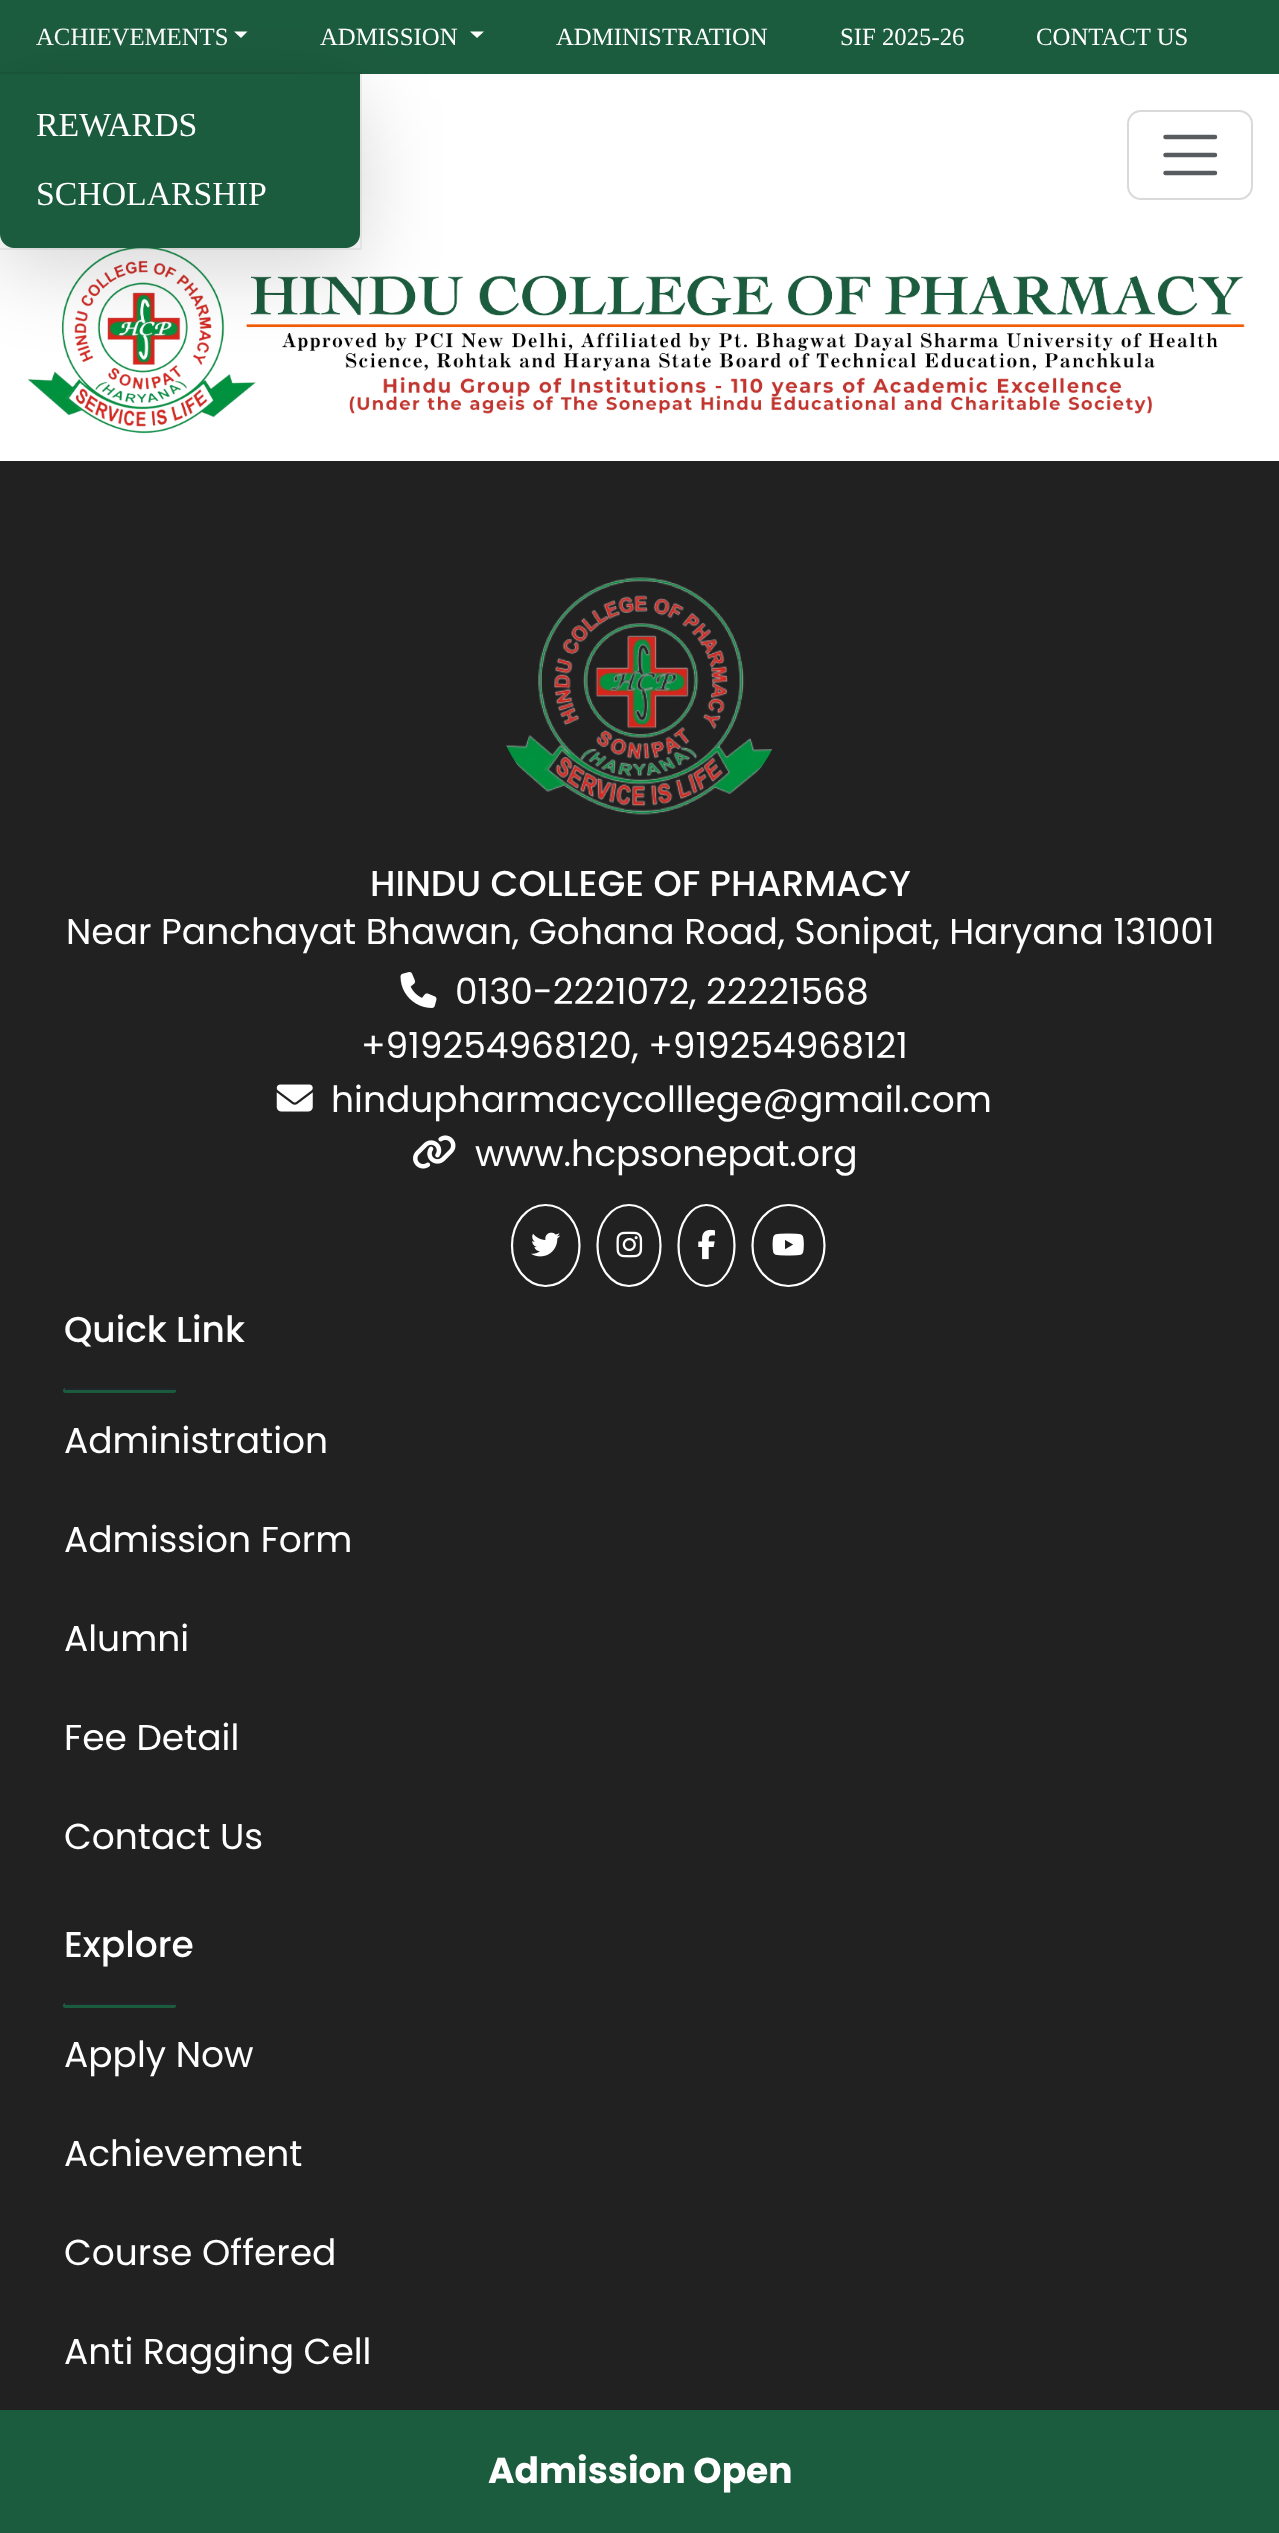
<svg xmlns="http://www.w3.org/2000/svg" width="1279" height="2533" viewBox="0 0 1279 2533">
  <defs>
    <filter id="blur1" x="-50%" y="-200%" width="200%" height="500%"><feGaussianBlur stdDeviation="40.5"/></filter>
  </defs>
  <rect width="100%" height="100%" fill="#ffffff"/>
  <rect x="0" y="0" width="1279" height="74" fill="#1c5c3e"/>
  <text x="36" y="45" font-family="Liberation Serif" font-size="24.75" fill="#ffffff">ACHIEVEMENTS</text>
  <path d="M234 31.5H247.5L241 38Z" fill="#ffffff"/>
  <image x="27" y="248" width="1218" height="186" href="img1.png"/>
  <rect x="-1" y="73" width="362" height="176" fill="none" stroke="#000000" stroke-opacity="0.06" stroke-width="2"/>
  <path d="M470 31.5H484L477 38Z" fill="#ffffff"/>
  <rect x="0" y="97" width="360" height="173" rx="14" fill="#000000" fill-opacity="0.16" filter="url(#blur1)"/>
  <path d="M0 74H360V234C360 241.5 353.5 248 346 248H14C6.5 248 0 241.5 0 234Z" fill="#1c5c3e"/>
  <text x="36" y="136" font-family="Liberation Serif" font-size="33.75" fill="#ffffff">REWARDS</text>
  <text x="36" y="205" font-family="Liberation Serif" font-size="33.75" fill="#ffffff">SCHOLARSHIP</text>
  <text x="320" y="45" font-family="Liberation Serif" font-size="24.75" fill="#ffffff">ADMISSION</text>
  <text x="556" y="45" font-family="Liberation Serif" font-size="24.75" fill="#ffffff">ADMINISTRATION</text>
  <text x="840" y="45" font-family="Liberation Serif" font-size="24.75" fill="#ffffff">SIF 2025-26</text>
  <text x="1036" y="45" font-family="Liberation Serif" font-size="24.75" fill="#ffffff">CONTACT US</text>
  <rect x="1128" y="111" width="124" height="88" rx="13" fill="none" stroke="#d9d9d9" stroke-width="2"/>
  <path d="M1165.5 137H1215M1165.5 155H1215M1165.5 173H1215" fill="none" stroke="#595c5f" stroke-width="4.5" stroke-linecap="round"/>
  <rect x="0" y="2410" width="1279" height="123" fill="#1c5c3e"/>
  <text x="488" y="2483" font-family="Poppins" font-size="36" font-weight="bold" fill="#ffffff">Admission Open</text>
  <rect x="0" y="461" width="1279" height="1949" fill="#212121"/>
  <image x="506" y="577" width="267" height="238" href="img2.png"/>
  <text x="370" y="896" font-family="Poppins" font-size="36" font-weight="500" fill="#ffffff">HINDU COLLEGE OF PHARMACY</text>
  <text x="66" y="944" font-family="Poppins" font-size="36" fill="#ffffff">Near Panchayat Bhawan, Gohana Road, Sonipat, Haryana 131001</text>
  <image x="400" y="972" width="37" height="36" href="img3.png"/>
  <text x="455" y="1004" font-family="Poppins" font-size="36" fill="#ffffff">0130-2221072, 22221568</text>
  <text x="361" y="1058" font-family="Poppins" font-size="36" fill="#ffffff">+919254968120, +919254968121</text>
  <image x="276" y="1084" width="37" height="28" href="img4.png"/>
  <text x="331" y="1112" font-family="Poppins" font-size="36" fill="#ffffff">hindupharmacycolllege@gmail.com</text>
  <image x="413" y="1135" width="43" height="34" href="img5.png"/>
  <text x="475" y="1166" font-family="Poppins" font-size="36" fill="#ffffff">www.hcpsonepat.org</text>
  <path d="M545.5 1205C564.5 1205 579.5 1223 579.5 1245.5C579.5 1267.5 564.5 1286 545.5 1286C527 1286 512 1267.5 512 1245.5C512 1223 527 1205 545.5 1205Z" fill="none" stroke="#ffffff" stroke-width="2.2"/>
  <image x="531" y="1232" width="30" height="25" href="img6.png"/>
  <path d="M629 1205C646.5 1205 660.5 1223 660.5 1245.5C660.5 1267.5 646.5 1286 629 1286C611.5 1286 597.5 1267.5 597.5 1245.5C597.5 1223 611.5 1205 629 1205Z" fill="none" stroke="#ffffff" stroke-width="2.2"/>
  <image x="616" y="1231" width="27" height="27" href="img7.png"/>
  <path d="M706.5 1205C722 1205 734.5 1223 734.5 1245.5C734.5 1267.5 722 1286 706.5 1286C691 1286 678.5 1267.5 678.5 1245.5C678.5 1223 691 1205 706.5 1205Z" fill="none" stroke="#ffffff" stroke-width="2.2"/>
  <image x="698" y="1229" width="17" height="31" href="img8.png"/>
  <path d="M788.5 1205C808.5 1205 824.5 1223 824.5 1245.5C824.5 1267.5 808.5 1286 788.5 1286C768.5 1286 752.5 1267.5 752.5 1245.5C752.5 1223 768.5 1205 788.5 1205Z" fill="none" stroke="#ffffff" stroke-width="2.2"/>
  <image x="772" y="1233" width="32" height="23" href="img9.png"/>
  <text x="64" y="1342" font-family="Poppins" font-size="36" font-weight="500" fill="#ffffff">Quick Link</text>
  <rect x="63" y="1388" width="113" height="5" rx="2.5" fill="#1c5c3e"/>
  <rect x="65" y="1388" width="111" height="2" fill="#212529"/>
  <text x="64" y="1453" font-family="Poppins" font-size="36" fill="#ffffff">Administration</text>
  <text x="64" y="1552" font-family="Poppins" font-size="36" fill="#ffffff">Admission Form</text>
  <text x="64" y="1651" font-family="Poppins" font-size="36" fill="#ffffff">Alumni</text>
  <text x="64" y="1750" font-family="Poppins" font-size="36" fill="#ffffff">Fee Detail</text>
  <text x="64" y="1849" font-family="Poppins" font-size="36" fill="#ffffff">Contact Us</text>
  <text x="64" y="1957" font-family="Poppins" font-size="36" font-weight="500" fill="#ffffff">Explore</text>
  <rect x="63" y="2003" width="113" height="5" rx="2.5" fill="#1c5c3e"/>
  <rect x="65" y="2003" width="111" height="2" fill="#212529"/>
  <text x="64" y="2067" font-family="Poppins" font-size="36" fill="#ffffff">Apply Now</text>
  <text x="64" y="2166" font-family="Poppins" font-size="36" fill="#ffffff">Achievement</text>
  <text x="64" y="2265" font-family="Poppins" font-size="36" fill="#ffffff">Course Offered</text>
  <text x="64" y="2364" font-family="Poppins" font-size="36" fill="#ffffff">Anti Ragging Cell</text>
</svg>
